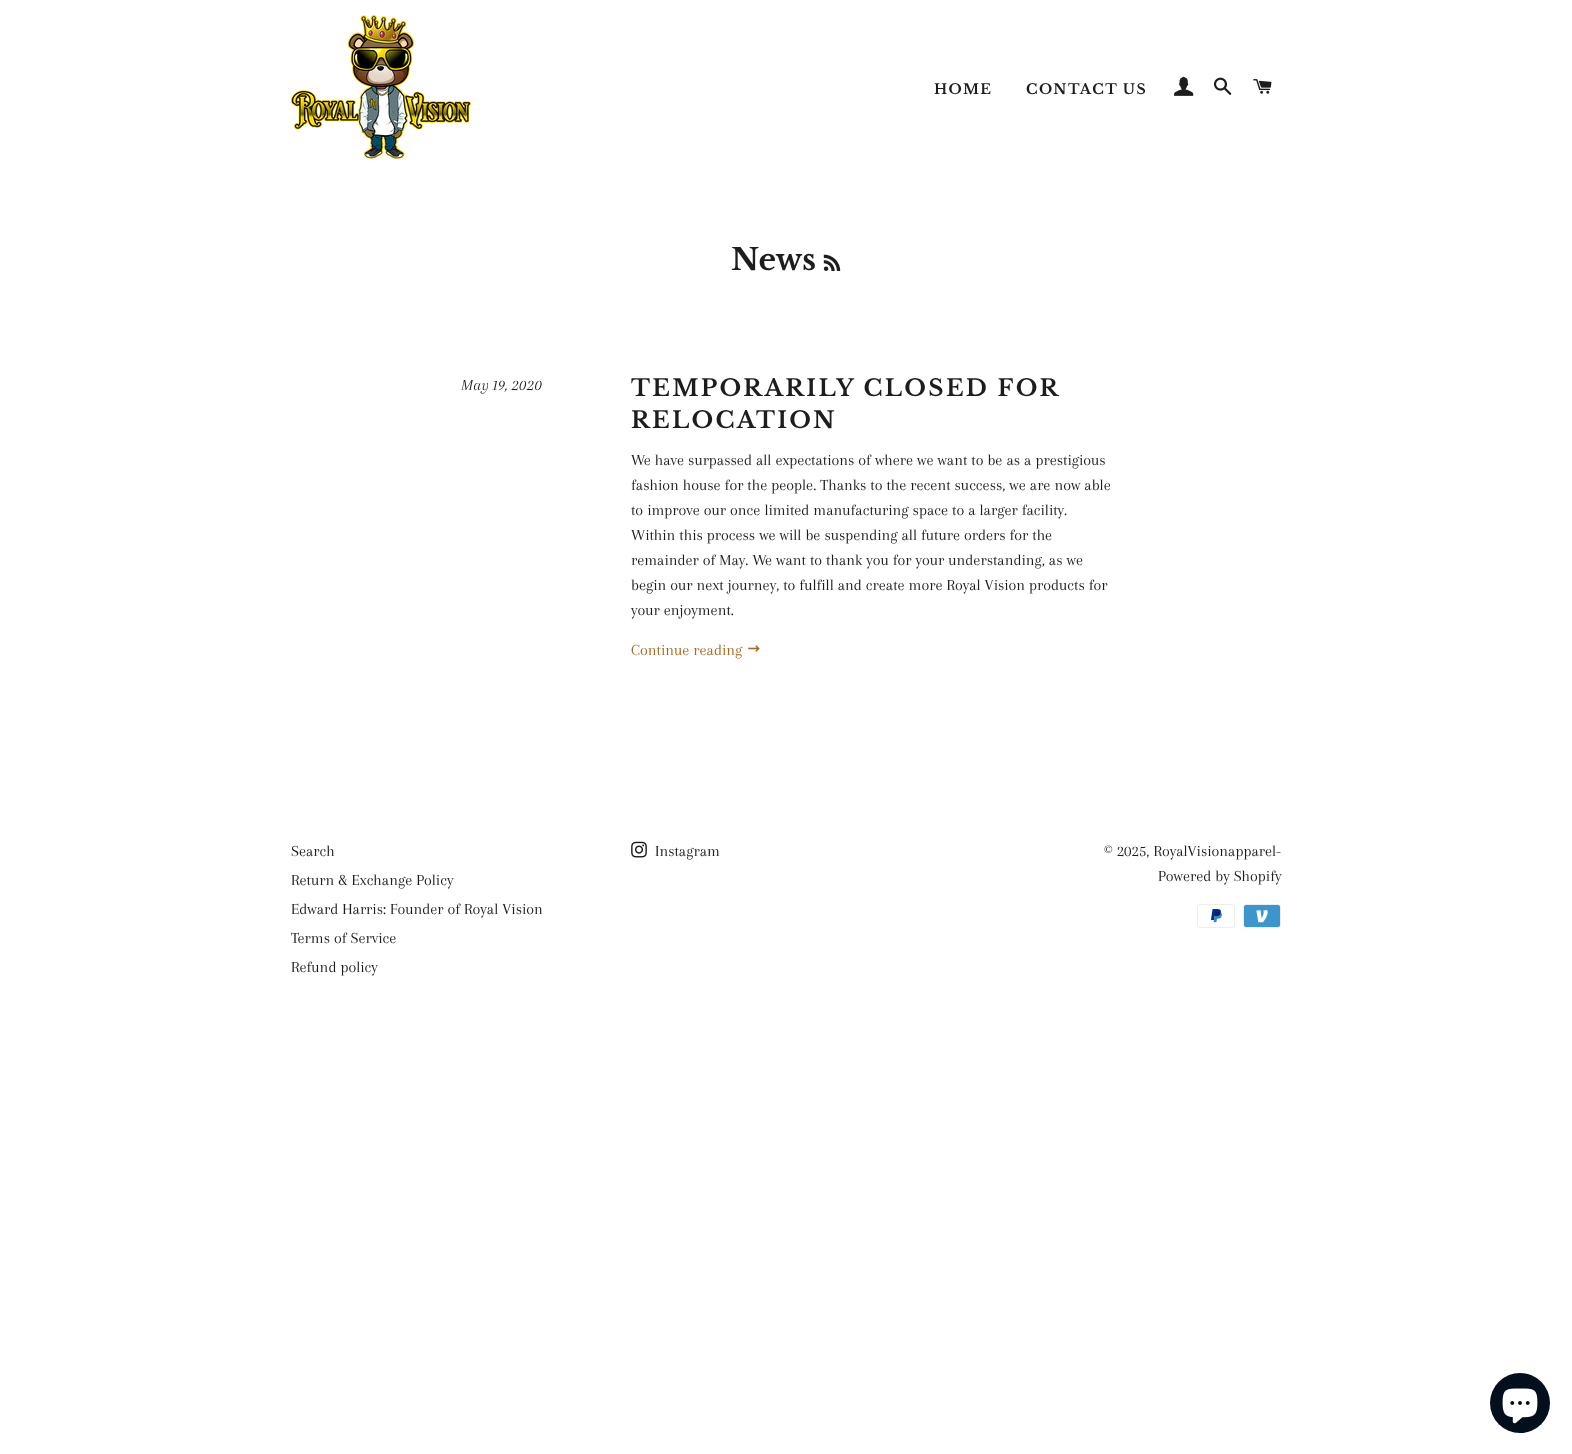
<svg xmlns="http://www.w3.org/2000/svg" width="1572" height="1454" viewBox="0 0 1572 1454">
  <rect width="100%" height="100%" fill="#ffffff"/>
  <image x="291" y="15" width="180" height="144" href="img1.png"/>
  <text x="934" y="94" font-family="Libre Baskerville" font-size="14" font-weight="bold" letter-spacing="1.4" fill="#1c1d1d">HOME</text>
  <text x="1026" y="94" font-family="Libre Baskerville" font-size="14" font-weight="bold" letter-spacing="1.4" fill="#1c1d1d">CONTACT US</text>
  <image x="1174" y="76" width="20" height="20" href="img2.png"/>
  <image x="1214" y="77" width="18" height="18" href="img3.png"/>
  <image x="1253" y="79" width="19" height="15" href="img4.png"/>
  <text x="731" y="270" font-family="Libre Baskerville" font-size="30" font-weight="bold" fill="#1c1d1d">News</text>
  <image x="823" y="254" width="18" height="17" href="img5.png"/>
  <text x="461" y="390" font-family="Arapey" font-size="16" font-style="italic" fill="#1c1d1d">May 19, 2020</text>
  <text x="631" y="396" font-family="Libre Baskerville" font-size="23" font-weight="bold" letter-spacing="2.3" fill="#1c1d1d">TEMPORARILY CLOSED FOR</text>
  <text x="631" y="428" font-family="Libre Baskerville" font-size="23" font-weight="bold" letter-spacing="2.3" fill="#1c1d1d">RELOCATION</text>
  <text x="631" y="465" font-family="Arapey" font-size="16" fill="#1c1d1d">We have surpassed all expectations of where we want to be as a prestigious</text>
  <text x="631" y="490" font-family="Arapey" font-size="16" fill="#1c1d1d">fashion house for the people. Thanks to the recent success, we are now able</text>
  <text x="631" y="515" font-family="Arapey" font-size="16" fill="#1c1d1d">to improve our once limited manufacturing space to a larger facility.</text>
  <text x="631" y="540" font-family="Arapey" font-size="16" fill="#1c1d1d">Within this process we will be suspending all future orders for the</text>
  <text x="631" y="565" font-family="Arapey" font-size="16" fill="#1c1d1d">remainder of May. We want to thank you for your understanding, as we</text>
  <text x="631" y="590" font-family="Arapey" font-size="16" fill="#1c1d1d">begin our next journey, to fulfill and create more Royal Vision products for</text>
  <text x="631" y="615" font-family="Arapey" font-size="16" fill="#1c1d1d">your enjoyment.</text>
  <text x="631" y="655" font-family="Arapey" font-size="16" fill="#a26b25">Continue reading</text>
  <image x="748" y="645" width="12" height="7" href="img6.png"/>
  <text x="291" y="856" font-family="Arapey" font-size="16" fill="#1c1d1d">Search</text>
  <text x="291" y="885" font-family="Arapey" font-size="16" fill="#1c1d1d">Return &amp; Exchange Policy</text>
  <text x="291" y="914" font-family="Arapey" font-size="16" fill="#1c1d1d">Edward Harris: Founder of Royal Vision</text>
  <text x="291" y="943" font-family="Arapey" font-size="16" fill="#1c1d1d">Terms of Service</text>
  <text x="291" y="972" font-family="Arapey" font-size="16" fill="#1c1d1d">Refund policy</text>
  <image x="631" y="841" width="16" height="17" href="img7.png"/>
  <text x="655" y="856" font-family="Arapey" font-size="16" fill="#1c1d1d">Instagram</text>
  <text x="1104" y="856" font-family="Arapey" font-size="16" fill="#1c1d1d">© 2025, RoyalVisionapparel-</text>
  <text x="1158" y="881" font-family="Arapey" font-size="16" fill="#1c1d1d">Powered by Shopify</text>
  <image x="1197" y="904" width="38" height="24" href="img8.png"/>
  <image x="1243" y="904" width="38" height="24" href="img9.png"/>
  <circle cx="1520" cy="1403" r="30" fill="#040f1d"/>
  <image x="1502" y="1388" width="36" height="36" href="img10.png"/>
</svg>
